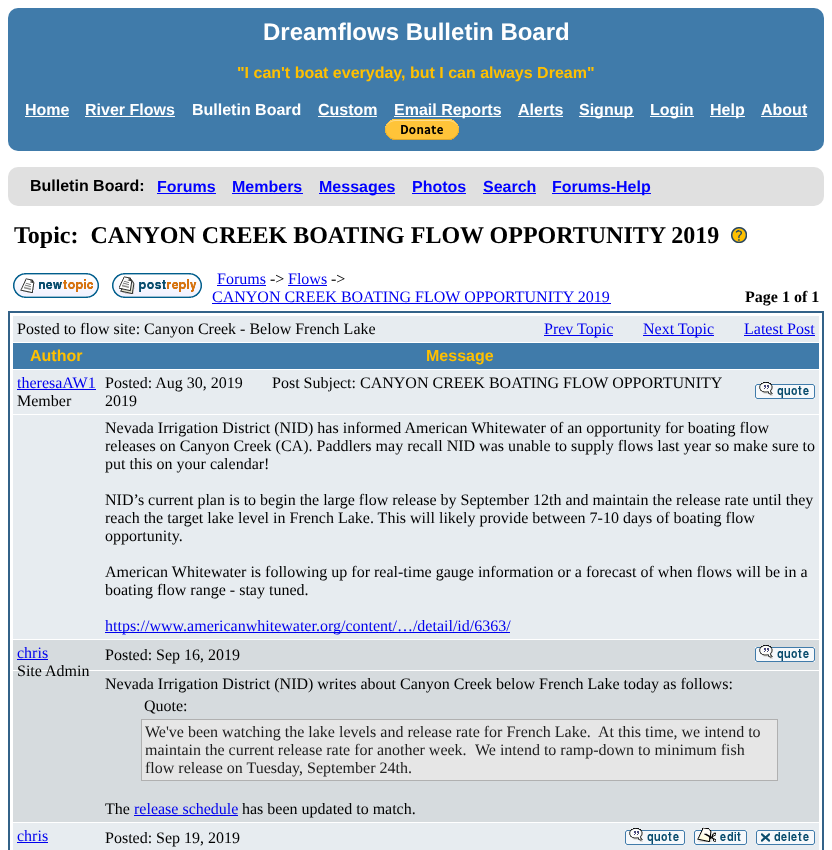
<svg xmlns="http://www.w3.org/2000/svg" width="832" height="850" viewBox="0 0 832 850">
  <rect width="100%" height="100%" fill="#ffffff"/>
  <rect x="8" y="8" width="816" height="143" rx="10" fill="#407baa"/>
  <text x="263" y="40" font-family="Liberation Sans" font-size="24" font-weight="bold" fill="#ffffff">Dreamflows Bulletin Board</text>
  <text x="237" y="78" font-family="Liberation Sans" font-size="16" font-weight="bold" fill="#ffc000">"I can't boat everyday, but I can always Dream"</text>
  <text x="25" y="115" font-family="Liberation Sans" font-size="16" font-weight="bold" fill="#ffffff">Home</text>
  <rect x="25" y="116" width="44" height="1" fill="#ffffff"/>
  <text x="85" y="115" font-family="Liberation Sans" font-size="16" font-weight="bold" fill="#ffffff">River Flows</text>
  <rect x="85" y="116" width="90" height="1" fill="#ffffff"/>
  <text x="192" y="115" font-family="Liberation Sans" font-size="16" font-weight="bold" fill="#ffffff">Bulletin Board</text>
  <text x="318" y="115" font-family="Liberation Sans" font-size="16" font-weight="bold" fill="#ffffff">Custom</text>
  <rect x="318" y="116" width="59" height="1" fill="#ffffff"/>
  <rect x="394" y="116" width="107" height="1" fill="#ffffff"/>
  <text x="394" y="115" font-family="Liberation Sans" font-size="16" font-weight="bold" fill="#ffffff">Email Reports</text>
  <text x="518" y="115" font-family="Liberation Sans" font-size="16" font-weight="bold" fill="#ffffff">Alerts</text>
  <rect x="518" y="116" width="45" height="1" fill="#ffffff"/>
  <rect x="579" y="116" width="55" height="1" fill="#ffffff"/>
  <text x="579" y="115" font-family="Liberation Sans" font-size="16" font-weight="bold" fill="#ffffff">Signup</text>
  <rect x="650" y="116" width="44" height="1" fill="#ffffff"/>
  <text x="650" y="115" font-family="Liberation Sans" font-size="16" font-weight="bold" fill="#ffffff">Login</text>
  <rect x="710" y="116" width="35" height="1" fill="#ffffff"/>
  <text x="710" y="115" font-family="Liberation Sans" font-size="16" font-weight="bold" fill="#ffffff">Help</text>
  <text x="761" y="115" font-family="Liberation Sans" font-size="16" font-weight="bold" fill="#ffffff">About</text>
  <rect x="761" y="116" width="46" height="1" fill="#ffffff"/>
  <image x="385" y="119" width="74" height="21" href="img1.png"/>
  <rect x="8" y="167" width="816" height="39" rx="10" fill="#e0e0e0"/>
  <text x="30" y="191" font-family="Liberation Sans" font-size="16" font-weight="bold" fill="#000000">Bulletin Board:</text>
  <text x="157" y="192" font-family="Liberation Sans" font-size="16" font-weight="bold" fill="#0000ff">Forums</text>
  <rect x="157" y="193" width="59" height="1" fill="#0000ff"/>
  <text x="232" y="192" font-family="Liberation Sans" font-size="16" font-weight="bold" fill="#0000ff">Members</text>
  <rect x="232" y="193" width="71" height="1" fill="#0000ff"/>
  <rect x="319" y="193" width="76" height="1" fill="#0000ff"/>
  <text x="319" y="192" font-family="Liberation Sans" font-size="16" font-weight="bold" fill="#0000ff">Messages</text>
  <text x="412" y="192" font-family="Liberation Sans" font-size="16" font-weight="bold" fill="#0000ff">Photos</text>
  <rect x="412" y="193" width="54" height="1" fill="#0000ff"/>
  <text x="483" y="192" font-family="Liberation Sans" font-size="16" font-weight="bold" fill="#0000ff">Search</text>
  <rect x="483" y="193" width="53" height="1" fill="#0000ff"/>
  <rect x="552" y="193" width="99" height="1" fill="#0000ff"/>
  <text x="552" y="192" font-family="Liberation Sans" font-size="16" font-weight="bold" fill="#0000ff">Forums-Help</text>
  <text x="14" y="243" font-family="Liberation Serif" font-size="24" font-weight="bold" fill="#000000" xml:space="preserve">Topic:  CANYON CREEK BOATING FLOW OPPORTUNITY 2019</text>
  <image x="731" y="227" width="16" height="16" href="img2.png"/>
  <image x="13" y="273" width="86" height="25" href="img3.png"/>
  <image x="112" y="273" width="90" height="25" href="img4.png"/>
  <text x="217" y="284" font-family="Liberation Serif" font-size="16" fill="#0000ee">Forums</text>
  <rect x="217" y="285" width="49" height="1" fill="#0000ee"/>
  <text x="270" y="284" font-family="Liberation Serif" font-size="16" fill="#000000">-&gt;</text>
  <text x="288" y="284" font-family="Liberation Serif" font-size="16" fill="#0000ee">Flows</text>
  <rect x="288" y="285" width="39" height="1" fill="#0000ee"/>
  <text x="331" y="284" font-family="Liberation Serif" font-size="16" fill="#000000">-&gt;</text>
  <text x="212" y="302" font-family="Liberation Serif" font-size="16" fill="#0000ee">CANYON CREEK BOATING FLOW OPPORTUNITY 2019</text>
  <rect x="212" y="303" width="399" height="1" fill="#0000ee"/>
  <text x="745" y="302" font-family="Liberation Serif" font-size="16" font-weight="bold" fill="#000000">Page 1 of 1</text>
  <rect x="9" y="312" width="814" height="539" fill="none" stroke="#336288" stroke-width="2"/>
  <rect x="13" y="316" width="806" height="26" fill="#e7ecf0"/>
  <text x="17" y="334" font-family="Liberation Serif" font-size="16" fill="#000000">Posted to flow site: Canyon Creek - Below French Lake</text>
  <rect x="544" y="335" width="69" height="1" fill="#0000ee"/>
  <text x="544" y="334" font-family="Liberation Serif" font-size="16" fill="#0000ee">Prev Topic</text>
  <rect x="643" y="335" width="71" height="1" fill="#0000ee"/>
  <text x="643" y="334" font-family="Liberation Serif" font-size="16" fill="#0000ee">Next Topic</text>
  <text x="744" y="334" font-family="Liberation Serif" font-size="16" fill="#0000ee">Latest Post</text>
  <rect x="744" y="335" width="71" height="1" fill="#0000ee"/>
  <rect x="13" y="343" width="806" height="26" fill="#407baa"/>
  <text x="30" y="361" font-family="Liberation Sans" font-size="16" font-weight="bold" fill="#ffc000">Author</text>
  <text x="426" y="361" font-family="Liberation Sans" font-size="16" font-weight="bold" fill="#ffc000">Message</text>
  <rect x="13" y="370" width="806" height="44" fill="#e7ecf0"/>
  <text x="17" y="388" font-family="Liberation Serif" font-size="16" fill="#0000ee">theresaAW1</text>
  <rect x="17" y="389" width="79" height="1" fill="#0000ee"/>
  <text x="17" y="406" font-family="Liberation Serif" font-size="16" fill="#000000">Member</text>
  <text x="105" y="388" font-family="Liberation Serif" font-size="16" fill="#000000">Posted: Aug 30, 2019</text>
  <text x="272" y="388" font-family="Liberation Serif" font-size="16" fill="#000000">Post Subject: CANYON CREEK BOATING FLOW OPPORTUNITY</text>
  <text x="105" y="406" font-family="Liberation Serif" font-size="16" fill="#000000">2019</text>
  <image x="755" y="382" width="60" height="17" href="img5.png"/>
  <rect x="13" y="415" width="806" height="224" fill="#e7ecf0"/>
  <text x="105" y="433" font-family="Liberation Serif" font-size="16" fill="#000000">Nevada Irrigation District (NID) has informed American Whitewater of an opportunity for boating flow</text>
  <text x="105" y="451" font-family="Liberation Serif" font-size="16" fill="#000000">releases on Canyon Creek (CA). Paddlers may recall NID was unable to supply flows last year so make sure to</text>
  <text x="105" y="469" font-family="Liberation Serif" font-size="16" fill="#000000">put this on your calendar!</text>
  <text x="105" y="505" font-family="Liberation Serif" font-size="16" fill="#000000">NID’s current plan is to begin the large flow release by September 12th and maintain the release rate until they</text>
  <text x="105" y="523" font-family="Liberation Serif" font-size="16" fill="#000000">reach the target lake level in French Lake. This will likely provide between 7-10 days of boating flow</text>
  <text x="105" y="541" font-family="Liberation Serif" font-size="16" fill="#000000">opportunity.</text>
  <text x="105" y="577" font-family="Liberation Serif" font-size="16" fill="#000000">American Whitewater is following up for real-time gauge information or a forecast of when flows will be in a</text>
  <text x="105" y="595" font-family="Liberation Serif" font-size="16" fill="#000000">boating flow range - stay tuned.</text>
  <rect x="105" y="632" width="405" height="1" fill="#0000ee"/>
  <text x="105" y="631" font-family="Liberation Serif" font-size="16" fill="#0000ee">https://www.americanwhitewater.org/content/…/detail/id/6363/</text>
  <rect x="13" y="640" width="806" height="30" fill="#d6dbde"/>
  <text x="17" y="658" font-family="Liberation Serif" font-size="16" fill="#0000ee">chris</text>
  <rect x="17" y="659" width="31" height="1" fill="#0000ee"/>
  <rect x="13" y="671" width="806" height="151" fill="#d6dbde"/>
  <text x="17" y="676" font-family="Liberation Serif" font-size="16" fill="#000000">Site Admin</text>
  <text x="105" y="660" font-family="Liberation Serif" font-size="16" fill="#000000">Posted: Sep 16, 2019</text>
  <image x="755" y="645" width="60" height="17" href="img6.png"/>
  <text x="105" y="689" font-family="Liberation Serif" font-size="16" fill="#000000">Nevada Irrigation District (NID) writes about Canyon Creek below French Lake today as follows:</text>
  <text x="144" y="711" font-family="Liberation Serif" font-size="16" fill="#000000">Quote:</text>
  <rect x="141.5" y="719.5" width="636" height="61" fill="#e6e6e6" stroke="#b0b0b0"/>
  <text x="145" y="737" font-family="Liberation Serif" font-size="16" fill="#202020" xml:space="preserve">We've been watching the lake levels and release rate for French Lake.  At this time, we intend to</text>
  <text x="145" y="755" font-family="Liberation Serif" font-size="16" fill="#202020">maintain the current release rate for another week.</text>
  <text x="475" y="755" font-family="Liberation Serif" font-size="16" fill="#202020">We intend to ramp-down to minimum fish</text>
  <text x="145" y="773" font-family="Liberation Serif" font-size="16" fill="#202020">flow release on Tuesday, September 24th.</text>
  <text x="105" y="814" font-family="Liberation Serif" font-size="16" fill="#000000">The</text>
  <text x="134" y="814" font-family="Liberation Serif" font-size="16" fill="#0000ee">release schedule</text>
  <rect x="134" y="815" width="104" height="1" fill="#0000ee"/>
  <text x="242" y="814" font-family="Liberation Serif" font-size="16" fill="#000000">has been updated to match.</text>
  <rect x="13" y="823" width="806" height="27" fill="#e7ecf0"/>
  <text x="17" y="841" font-family="Liberation Serif" font-size="16" fill="#0000ee">chris</text>
  <rect x="17" y="842" width="31" height="1" fill="#0000ee"/>
  <text x="105" y="843" font-family="Liberation Serif" font-size="16" fill="#000000">Posted: Sep 19, 2019</text>
  <image x="625" y="828" width="60" height="17" href="img5.png"/>
  <image x="694" y="827" width="53" height="18" href="img7.png"/>
  <image x="756" y="830" width="59" height="15" href="img8.png"/>
</svg>
